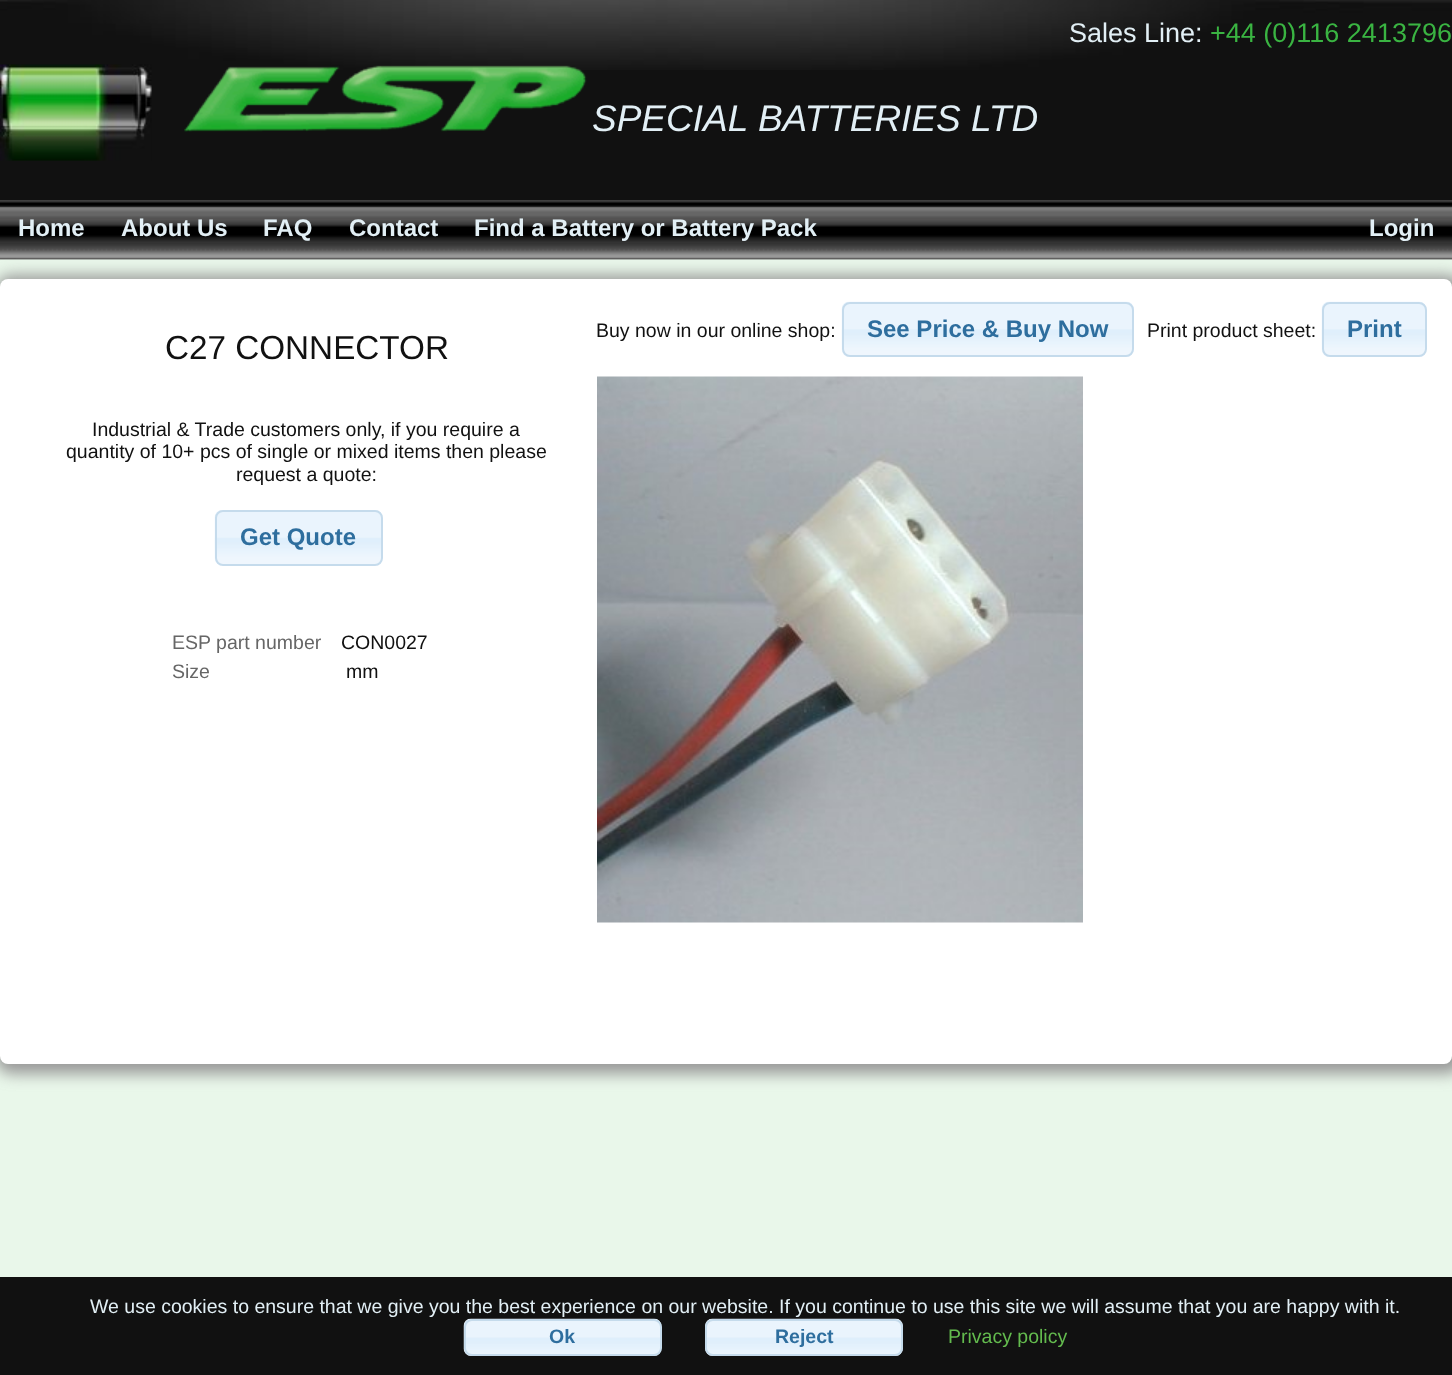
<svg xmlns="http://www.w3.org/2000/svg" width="1452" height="1375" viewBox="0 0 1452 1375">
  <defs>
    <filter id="blur1" x="-50%" y="-200%" width="200%" height="500%"><feGaussianBlur stdDeviation="7.5"/></filter>
  </defs>
  <rect width="100%" height="100%" fill="#e9f7ea"/>
  <rect x="0" y="70" width="1452" height="130" fill="#111111"/>
  <image x="0" y="0" width="1452" height="70" href="img1.png"/>
  <text x="1069" y="42" font-family="Liberation Sans" font-size="27" fill="#e2eff5">Sales Line:</text>
  <text x="1210" y="42" font-family="Liberation Sans" font-size="27" fill="#3ab442">+44 (0)116 2413796</text>
  <image x="0" y="64" width="152" height="97" href="img2.png"/>
  <image x="184" y="65" width="403" height="67" href="img3.png"/>
  <text x="592" y="131" font-family="Liberation Sans" font-size="37" font-style="italic" fill="#e2eff5">SPECIAL BATTERIES LTD</text>
  <image x="0" y="200" width="1452" height="60" href="img4.png"/>
  <text x="18" y="236" font-family="Liberation Sans" font-size="24" font-weight="bold" fill="#e2eff5">Home</text>
  <text x="121" y="236" font-family="Liberation Sans" font-size="24" font-weight="bold" fill="#e2eff5">About Us</text>
  <text x="263" y="236" font-family="Liberation Sans" font-size="24" font-weight="bold" fill="#e2eff5">FAQ</text>
  <text x="349" y="236" font-family="Liberation Sans" font-size="24" font-weight="bold" fill="#e2eff5">Contact</text>
  <text x="474" y="236" font-family="Liberation Sans" font-size="24" font-weight="bold" fill="#e2eff5">Find a Battery or Battery Pack</text>
  <text x="1369" y="236" font-family="Liberation Sans" font-size="24" font-weight="bold" fill="#e2eff5">Login</text>
  <rect x="-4" y="275" width="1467" height="799" rx="15" fill="#999999" filter="url(#blur1)"/>
  <rect x="0" y="279" width="1452" height="785" rx="8" fill="#ffffff"/>
  <text x="596" y="337" font-family="Liberation Sans" font-size="19.5" fill="#111111">Buy now in our online shop:</text>
  <image x="841" y="301" width="293" height="56" href="img5.png"/>
  <rect x="843" y="303" width="290" height="53" rx="7" fill="none" stroke="#c5dbec" stroke-width="2"/>
  <text x="867" y="337" font-family="Liberation Sans" font-size="24" font-weight="bold" fill="#2e6e9e">See Price &amp; Buy Now</text>
  <text x="1147" y="337" font-family="Liberation Sans" font-size="19.5" fill="#111111">Print product sheet:</text>
  <image x="1321" y="301" width="106" height="56" href="img6.png"/>
  <rect x="1323" y="303" width="103" height="53" rx="7" fill="none" stroke="#c5dbec" stroke-width="2"/>
  <text x="1347" y="337" font-family="Liberation Sans" font-size="24" font-weight="bold" fill="#2e6e9e">Print</text>
  <image x="597" y="376" width="486" height="547" href="img7.png"/>
  <text x="165" y="359" font-family="Liberation Sans" font-size="33.25" fill="#111111">C27 CONNECTOR</text>
  <text x="92" y="436" font-family="Liberation Sans" font-size="19.5" fill="#111111">Industrial &amp; Trade customers only, if you require a</text>
  <text x="66" y="458" font-family="Liberation Sans" font-size="19.5" fill="#111111">quantity of 10+ pcs of single or mixed items then please</text>
  <text x="236" y="481" font-family="Liberation Sans" font-size="19.5" fill="#111111">request a quote:</text>
  <image x="214" y="510" width="169" height="56" href="img8.png"/>
  <rect x="216" y="511" width="166" height="54" rx="7" fill="none" stroke="#c5dbec" stroke-width="2"/>
  <text x="240" y="545" font-family="Liberation Sans" font-size="24" font-weight="bold" fill="#2e6e9e">Get Quote</text>
  <text x="172" y="649" font-family="Liberation Sans" font-size="19.5" fill="#666666">ESP part number</text>
  <text x="341" y="649" font-family="Liberation Sans" font-size="19.5" fill="#111111">CON0027</text>
  <text x="172" y="678" font-family="Liberation Sans" font-size="19.5" fill="#666666">Size</text>
  <text x="346" y="678" font-family="Liberation Sans" font-size="19.5" fill="#111111">mm</text>
  <rect x="0" y="1277" width="1452" height="98" fill="#111111"/>
  <text x="90" y="1313" font-family="Liberation Sans" font-size="19.5" fill="#e2eff5">We use cookies to ensure that we give you the best experience on our website. If you continue to use this site we will assume that you are happy with it.</text>
  <image x="463" y="1318" width="199" height="38" href="img9.png"/>
  <rect x="465" y="1320" width="196" height="35" rx="7" fill="none" stroke="#c5dbec" stroke-width="2"/>
  <text x="549" y="1343" font-family="Liberation Sans" font-size="19.5" font-weight="bold" fill="#2e6e9e">Ok</text>
  <image x="705" y="1318" width="198" height="38" href="img10.png"/>
  <rect x="706" y="1320" width="196" height="35" rx="7" fill="none" stroke="#c5dbec" stroke-width="2"/>
  <text x="775" y="1343" font-family="Liberation Sans" font-size="19.5" font-weight="bold" fill="#2e6e9e">Reject</text>
  <text x="948" y="1343" font-family="Liberation Sans" font-size="19.5" fill="#63bb4e">Privacy policy</text>
</svg>
